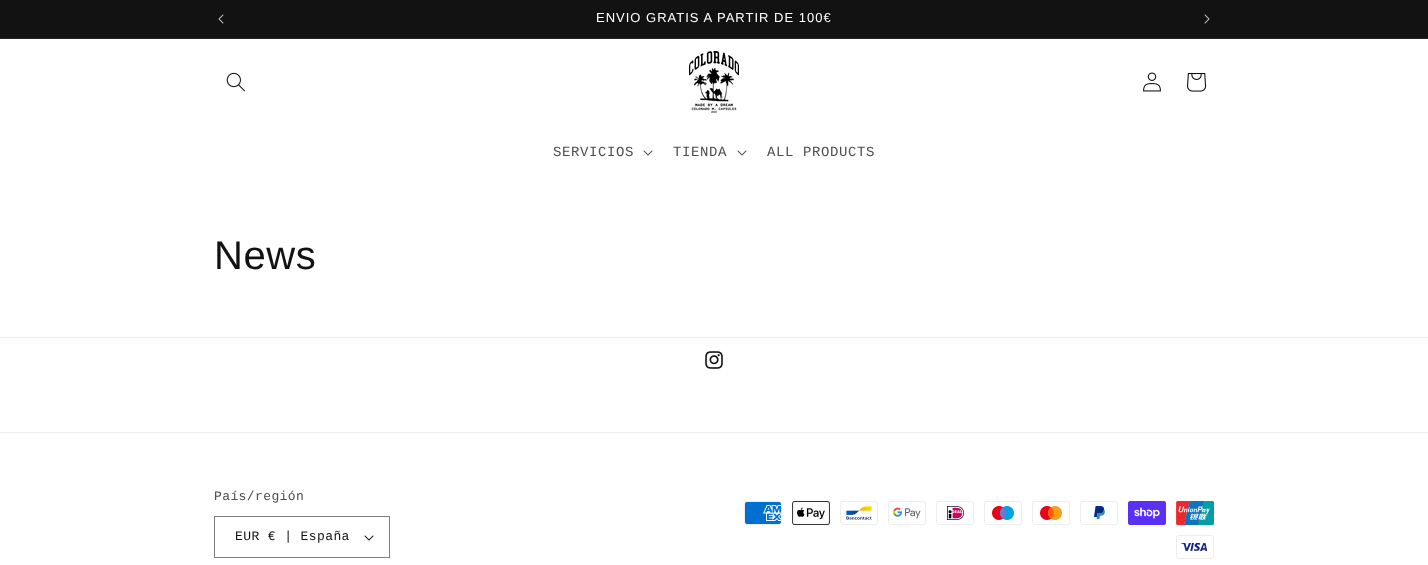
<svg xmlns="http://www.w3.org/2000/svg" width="1428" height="565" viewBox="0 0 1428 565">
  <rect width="100%" height="100%" fill="#ffffff"/>
  <rect x="0" y="0" width="1428" height="38" fill="#121212"/>
  <rect x="0" y="38" width="1428" height="1" fill="#252525"/>
  <image x="218" y="14" width="6" height="10" href="img1.png"/>
  <text x="596" y="22" font-family="Liberation Sans" font-size="13" letter-spacing="1" fill="#ffffff">ENVIO GRATIS A PARTIR DE 100€</text>
  <image x="1204" y="14" width="6" height="10" href="img2.png"/>
  <image x="226" y="72" width="19" height="20" href="img3.png"/>
  <image x="689" y="51" width="50" height="62" href="img4.png"/>
  <image x="1143" y="72" width="18" height="20" href="img5.png"/>
  <image x="1187" y="73" width="20" height="19" href="img6.png"/>
  <text x="553" y="156" font-family="Liberation Mono" font-size="14" letter-spacing="0.6" fill="#4d4d4d">SERVICIOS</text>
  <image x="643" y="150" width="10" height="6" href="img7.png"/>
  <text x="673" y="156" font-family="Liberation Mono" font-size="14" letter-spacing="0.6" fill="#4d4d4d">TIENDA</text>
  <image x="737" y="150" width="10" height="6" href="img7.png"/>
  <text x="767" y="156" font-family="Liberation Mono" font-size="14" letter-spacing="0.6" fill="#4d4d4d">ALL PRODUCTS</text>
  <text x="214" y="269" font-family="Liberation Sans" font-size="40" letter-spacing="0.6" fill="#121212">News</text>
  <rect x="0" y="337" width="1428" height="1" fill="#ececec"/>
  <image x="705" y="351" width="18" height="18" href="img8.png"/>
  <rect x="0" y="432" width="1428" height="1" fill="#ececec"/>
  <text x="214" y="500" font-family="Liberation Mono" font-size="13" letter-spacing="0.4" fill="#4d4d4d">País/región</text>
  <image x="364" y="535" width="10" height="6" href="img9.png"/>
  <rect x="214.5" y="516.5" width="175" height="41" fill="none" stroke="#7d7d7d"/>
  <text x="235" y="540" font-family="Liberation Mono" font-size="13" letter-spacing="0.4" fill="#121212">EUR € | España</text>
  <image x="744" y="501" width="38" height="24" href="img10.png"/>
  <image x="792" y="501" width="38" height="24" href="img11.png"/>
  <image x="840" y="501" width="38" height="24" href="img12.png"/>
  <image x="888" y="501" width="38" height="24" href="img13.png"/>
  <image x="936" y="501" width="38" height="24" href="img14.png"/>
  <image x="984" y="501" width="38" height="24" href="img15.png"/>
  <image x="1032" y="501" width="38" height="24" href="img16.png"/>
  <image x="1080" y="501" width="38" height="24" href="img17.png"/>
  <image x="1128" y="501" width="38" height="24" href="img18.png"/>
  <image x="1176" y="501" width="38" height="24" href="img19.png"/>
  <image x="1176" y="535" width="38" height="24" href="img20.png"/>
</svg>
